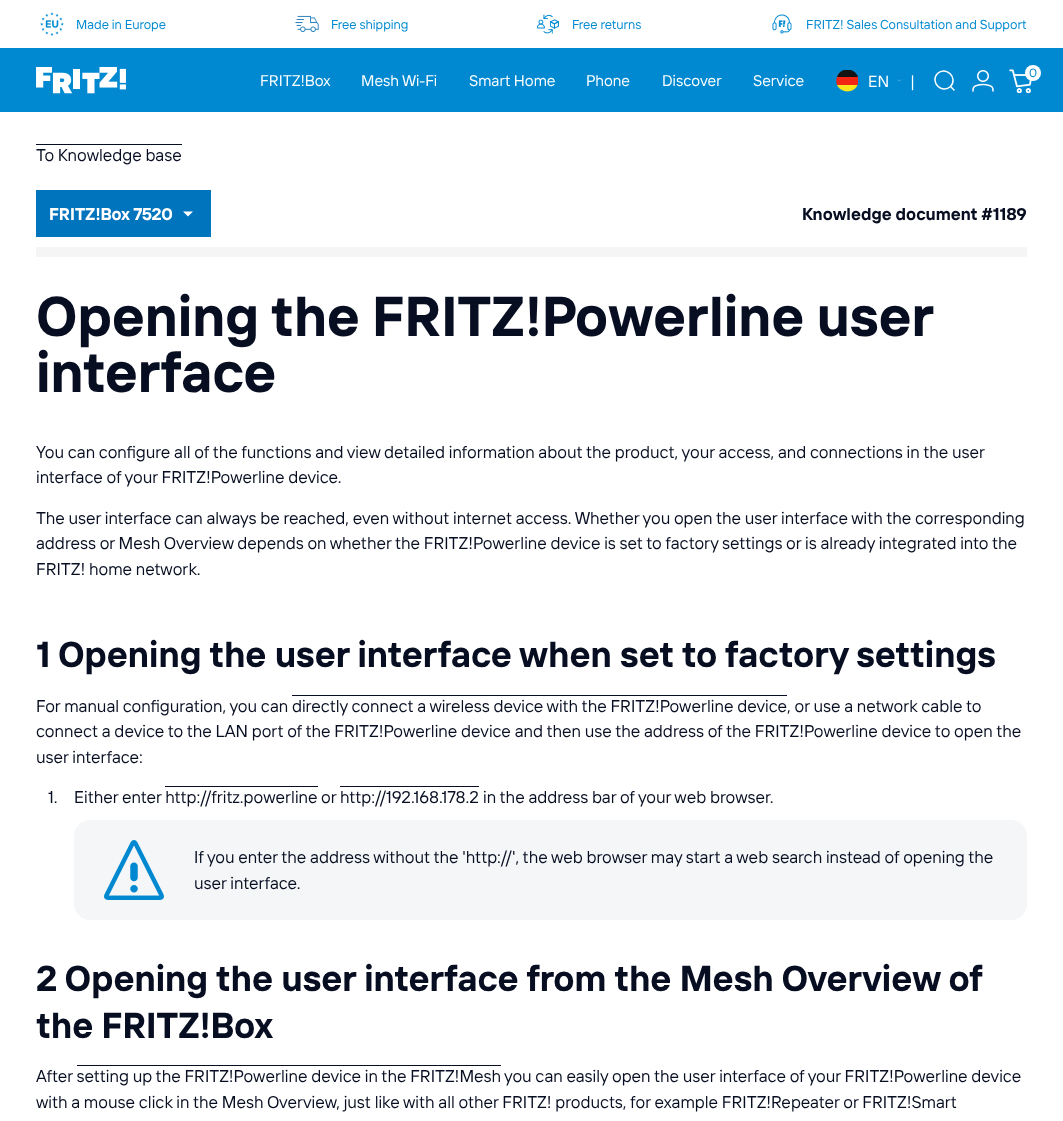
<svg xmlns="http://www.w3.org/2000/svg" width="1063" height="1121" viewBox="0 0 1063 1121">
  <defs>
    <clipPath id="clip1"><rect x="836" y="70" width="22" height="22"/></clipPath>
  </defs>
  <rect width="100%" height="100%" fill="#ffffff"/>
  <image x="40" y="12" width="24" height="24" href="img1.png"/>
  <text x="76" y="29" font-family="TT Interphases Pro" font-size="13" fill="#0089d1">Made in Europe</text>
  <image x="295" y="15" width="24" height="18" href="img2.png"/>
  <text x="331" y="29" font-family="TT Interphases Pro" font-size="13" fill="#0089d1">Free shipping</text>
  <image x="536" y="14" width="23" height="20" href="img3.png"/>
  <text x="572" y="29" font-family="TT Interphases Pro" font-size="13" fill="#0089d1">Free returns</text>
  <image x="772" y="14" width="20" height="20" href="img4.png"/>
  <text x="806" y="29" font-family="TT Interphases Pro" font-size="13" fill="#0089d1">FRITZ! Sales Consultation and Support</text>
  <rect x="0" y="48" width="1063" height="64" fill="#0089d1"/>
  <image x="36" y="67" width="90" height="27" href="img5.png"/>
  <text x="260" y="86" font-family="TT Interphases Pro" font-size="15.5" fill="#ffffff">FRITZ!Box</text>
  <text x="361" y="86" font-family="TT Interphases Pro" font-size="15.5" fill="#ffffff">Mesh Wi-Fi</text>
  <text x="469" y="86" font-family="TT Interphases Pro" font-size="15.5" fill="#ffffff">Smart Home</text>
  <text x="586" y="86" font-family="TT Interphases Pro" font-size="15.5" fill="#ffffff">Phone</text>
  <text x="662" y="86" font-family="TT Interphases Pro" font-size="15.5" fill="#ffffff">Discover</text>
  <text x="753" y="86" font-family="TT Interphases Pro" font-size="15.5" fill="#ffffff">Service</text>
  <path d="M954 90L950.5 86.5M950.5 86.5C958.5 78 946 65.5 937.5 73.5C929.5 82 942 94.5 950.5 86.5Z" fill="none" stroke="#ffffff" stroke-width="1.5" stroke-linecap="round"/>
  <image x="972" y="70" width="22" height="22" href="img6.png"/>
  <image x="1009" y="69" width="23" height="24" href="img7.png"/>
  <circle cx="1033" cy="73" r="8" fill="#ffffff"/>
  <text x="1029" y="77" font-family="TT Interphases Pro" font-size="12" fill="#0089d1">0</text>
  <g clip-path="url(#clip1)">
    <path d="M857.5 76H837.5C836 79 836 82 837 85H857.5C859 82 859 79 857.5 76Z" fill="#f32614"/>
  </g>
  <path d="M857.5 85H837C841 93.5 854 93.5 857.5 85Z" fill="#f8e71c"/>
  <g clip-path="url(#clip1)">
    <path d="M847.5 69.5C852 69.5 856.5 72.5 858 77H837C838.5 72.5 842.5 69.5 847.5 69.5Z" fill="#131413"/>
  </g>
  <text x="868" y="87" font-family="TT Interphases Pro" font-size="16" fill="#ffffff">EN</text>
  <path d="M898 80L899.5 81L900.5 80" fill="none" stroke="#ffffff" stroke-width="0.3" stroke-linecap="round" stroke-linejoin="round"/>
  <text x="910" y="87" font-family="TT Interphases Pro" font-size="16" fill="#ffffff">|</text>
  <text x="36" y="161" font-family="TT Interphases Pro" font-size="17" fill="#070e21">To Knowledge base</text>
  <rect x="36" y="144" width="146" height="1" fill="#070e21"/>
  <rect x="36" y="247" width="991" height="10" fill="#f5f5f5"/>
  <rect x="36" y="190" width="175" height="47" fill="#0074bd"/>
  <text x="49" y="220" font-family="TT Interphases Pro" font-size="17" font-weight="bold" fill="#ffffff">FRITZ!Box 7520</text>
  <image x="183" y="211" width="10" height="6" href="img8.png"/>
  <text x="802" y="220" font-family="TT Interphases Pro" font-size="17" font-weight="bold" fill="#070e21">Knowledge document #1189</text>
  <text x="36" y="336" word-spacing="-0.5" font-family="TT Interphases Pro" font-size="56" font-weight="bold" fill="#070e21">Opening the FRITZ!Powerline user</text>
  <text x="36" y="392" font-family="TT Interphases Pro" font-size="56" font-weight="bold" fill="#070e21">interface</text>
  <text x="36" y="458" font-family="TT Interphases Pro" font-size="17" fill="#070e21">You can configure all of the functions and view detailed information about the product, your access, and connections in the user</text>
  <text x="36" y="483" font-family="TT Interphases Pro" font-size="17" fill="#070e21">interface of your FRITZ!Powerline device.</text>
  <text x="36" y="524" font-family="TT Interphases Pro" font-size="17" fill="#070e21">The user interface can always be reached, even without internet access. Whether you open the user interface with the corresponding</text>
  <text x="36" y="549" font-family="TT Interphases Pro" font-size="17" fill="#070e21">address or Mesh Overview depends on whether the FRITZ!Powerline device is set to factory settings or is already integrated into the</text>
  <text x="36" y="575" font-family="TT Interphases Pro" font-size="17" fill="#070e21">FRITZ! home network.</text>
  <text x="36" y="667" font-family="TT Interphases Pro" font-size="36" font-weight="bold" fill="#070e21">1 Opening the user interface when set to factory settings</text>
  <rect x="292" y="695" width="495" height="1" fill="#070e21"/>
  <text x="36" y="712" font-family="TT Interphases Pro" font-size="17" fill="#070e21">For manual configuration, you can directly connect a wireless device with the FRITZ!Powerline device</text>
  <text x="787" y="712" font-family="TT Interphases Pro" font-size="17" fill="#070e21">, or use a network cable to</text>
  <text x="36" y="737" font-family="TT Interphases Pro" font-size="17" fill="#070e21">connect a device to the LAN port of the FRITZ!Powerline device and then use the address of the FRITZ!Powerline device to open the</text>
  <text x="36" y="763" font-family="TT Interphases Pro" font-size="17" fill="#070e21">user interface:</text>
  <rect x="165" y="786" width="153" height="1" fill="#070e21"/>
  <rect x="340" y="786" width="139" height="1" fill="#070e21"/>
  <text x="48" y="803" font-family="TT Interphases Pro" font-size="17" fill="#070e21">1.</text>
  <text x="74" y="803" font-family="TT Interphases Pro" font-size="17" fill="#070e21">Either enter http://fritz.powerline</text>
  <text x="321" y="803" font-family="TT Interphases Pro" font-size="17" fill="#070e21">or http://192.168.178.2</text>
  <text x="483" y="803" font-family="TT Interphases Pro" font-size="17" fill="#070e21">in the address bar of your web browser.</text>
  <rect x="74" y="820" width="953" height="100" rx="16" fill="#f4f6f8"/>
  <image x="104" y="840" width="60" height="60" href="img9.png"/>
  <text x="194" y="863" font-family="TT Interphases Pro" font-size="17" fill="#070e21">If you enter the address without the 'http://', the web browser may start a web search instead of opening the</text>
  <text x="194" y="889" font-family="TT Interphases Pro" font-size="17" fill="#070e21">user interface.</text>
  <text x="36" y="991" font-family="TT Interphases Pro" font-size="36" font-weight="bold" fill="#070e21">2 Opening the user interface from the Mesh Overview of</text>
  <text x="36" y="1038" font-family="TT Interphases Pro" font-size="36" font-weight="bold" fill="#070e21">the FRITZ!Box</text>
  <rect x="77" y="1065" width="424" height="1" fill="#070e21"/>
  <text x="36" y="1082" font-family="TT Interphases Pro" font-size="17" fill="#070e21">After setting up the FRITZ!Powerline device in the FRITZ!Mesh</text>
  <text x="504" y="1082" font-family="TT Interphases Pro" font-size="17" fill="#070e21">you can easily open the user interface of your FRITZ!Powerline device</text>
  <text x="36" y="1108" font-family="TT Interphases Pro" font-size="17" fill="#070e21">with a mouse click in the Mesh Overview, just like with all other FRITZ! products, for example FRITZ!Repeater or FRITZ!Smart</text>
</svg>
